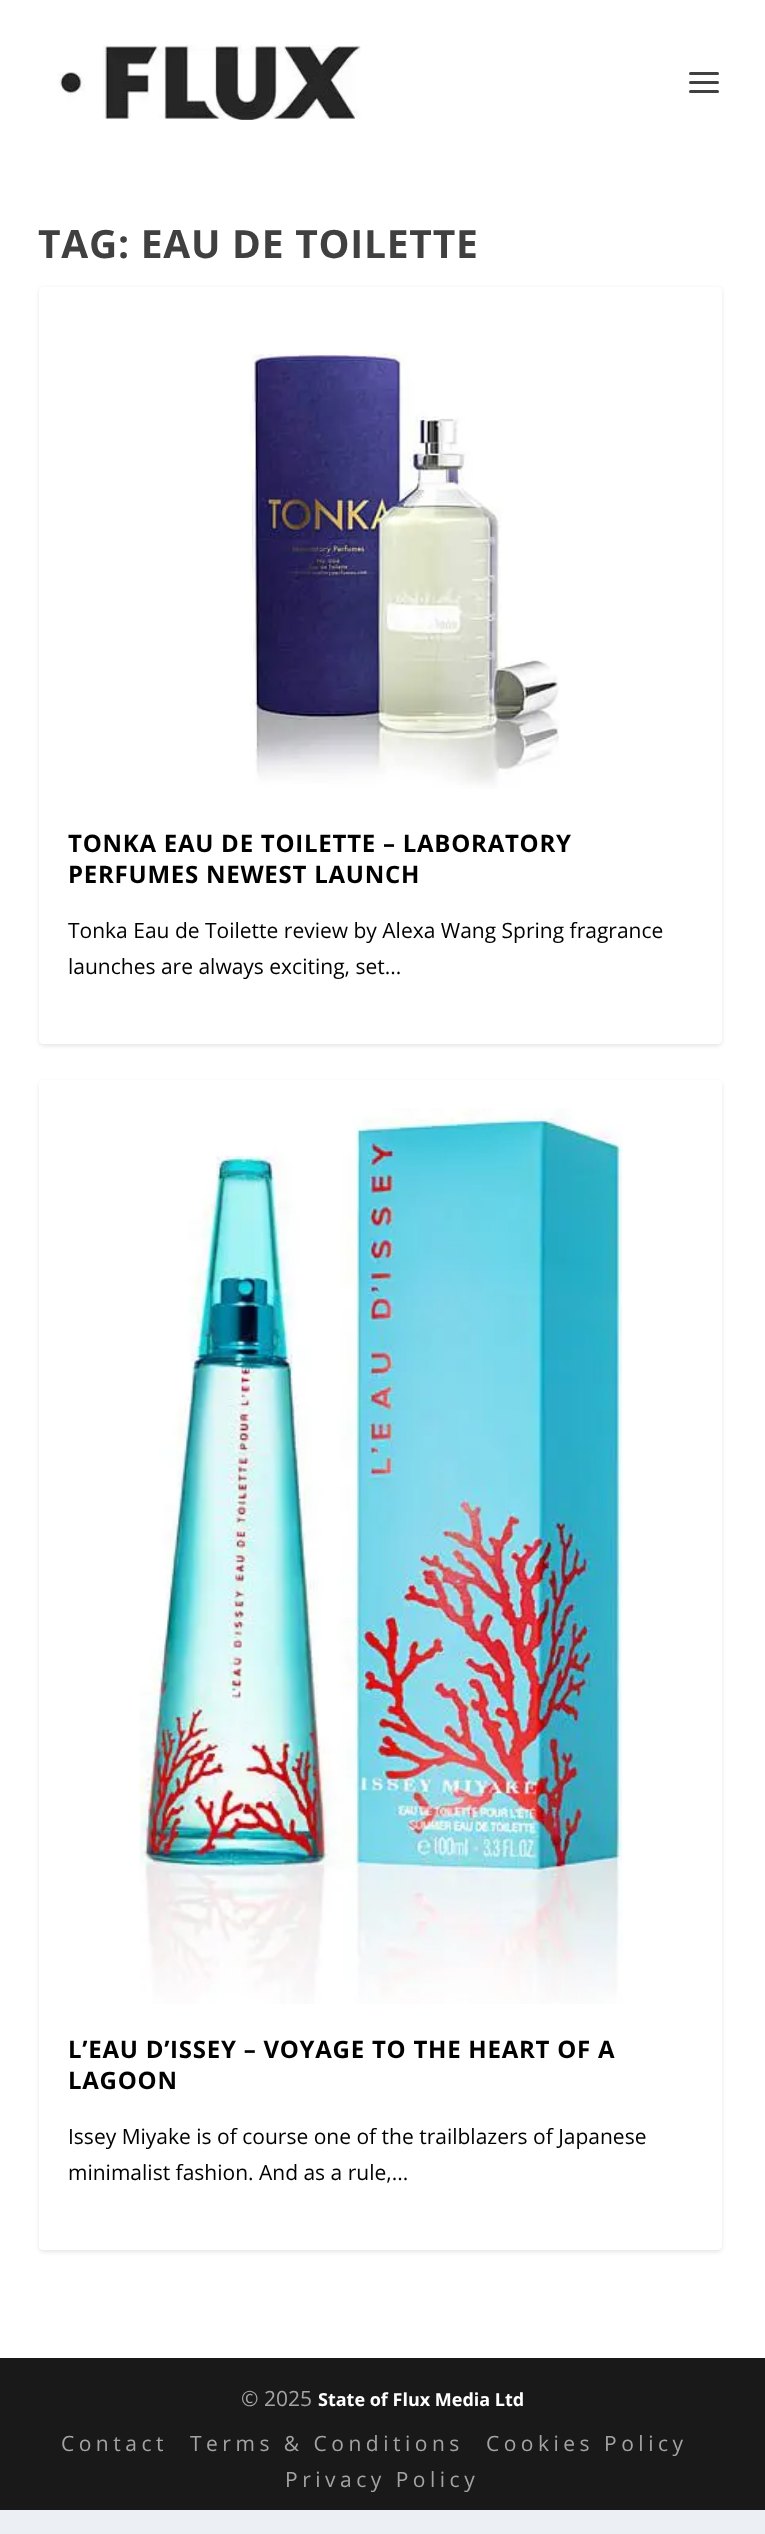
<svg xmlns="http://www.w3.org/2000/svg" width="765" height="2534" viewBox="0 0 765 2534">
  <defs>
    <clipPath id="clip1"><path d="M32 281H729V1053H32ZM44 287H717C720 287 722 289 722 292V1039C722 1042 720 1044 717 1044H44C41 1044 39 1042 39 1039V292C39 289 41 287 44 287Z" clip-rule="evenodd"/></clipPath>
    <filter id="blur1" x="-50%" y="-200%" width="200%" height="500%"><feGaussianBlur stdDeviation="2"/></filter>
    <clipPath id="clip2"><path d="M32 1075H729V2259H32ZM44 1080H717C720 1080 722 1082 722 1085V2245C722 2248 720 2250 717 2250H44C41 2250 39 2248 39 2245V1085C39 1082 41 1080 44 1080Z" clip-rule="evenodd"/></clipPath>
  </defs>
  <rect width="100%" height="100%" fill="#ecf0f5"/>
  <rect x="0" y="0" width="765" height="2358" fill="#ffffff"/>
  <image x="58" y="45" width="303" height="75" href="img1.png"/>
  <rect x="689" y="72" width="30" height="3" rx="1.5" fill="#404040"/>
  <rect x="689" y="81" width="30" height="3" rx="1.5" fill="#404040"/>
  <rect x="689" y="90" width="30" height="3" rx="1.5" fill="#404040"/>
  <text x="38" y="258" font-family="Open Sans" font-size="39" font-weight="bold" letter-spacing="0.75" fill="#404040">TAG: EAU DE TOILETTE</text>
  <g clip-path="url(#clip1)">
    <rect x="39" y="288" width="683" height="758" rx="5" fill="#000000" fill-opacity="0.1" filter="url(#blur1)"/>
  </g>
  <rect x="39" y="287" width="683" height="757" rx="5" fill="#ffffff"/>
  <image x="249" y="350" width="311" height="439" href="img2.png"/>
  <text x="68" y="852" font-family="Open Sans" font-size="24" font-weight="bold" letter-spacing="0.75" fill="#000000">TONKA EAU DE TOILETTE – LABORATORY</text>
  <text x="68" y="883" font-family="Open Sans" font-size="24" font-weight="bold" letter-spacing="0.75" fill="#000000">PERFUMES NEWEST LAUNCH</text>
  <text x="68" y="938" font-family="Open Sans" font-size="21" fill="#000000">Tonka Eau de Toilette review by Alexa Wang Spring fragrance</text>
  <text x="68" y="974" font-family="Open Sans" font-size="21" fill="#000000">launches are always exciting, set...</text>
  <g clip-path="url(#clip2)">
    <rect x="39" y="1082" width="683" height="1170" rx="5" fill="#000000" fill-opacity="0.1" filter="url(#blur1)"/>
  </g>
  <rect x="39" y="1080" width="683" height="1170" rx="5" fill="#ffffff"/>
  <image x="139" y="1108" width="484" height="896" href="img3.png"/>
  <text x="68" y="2058" font-family="Open Sans" font-size="24" font-weight="bold" letter-spacing="0.75" fill="#000000">L’EAU D’ISSEY – VOYAGE TO THE HEART OF A</text>
  <text x="68" y="2089" font-family="Open Sans" font-size="24" font-weight="bold" letter-spacing="0.75" fill="#000000">LAGOON</text>
  <text x="68" y="2144" font-family="Open Sans" font-size="21" fill="#000000">Issey Miyake is of course one of the trailblazers of Japanese</text>
  <text x="68" y="2180" font-family="Open Sans" font-size="21" fill="#000000">minimalist fashion. And as a rule,...</text>
  <rect x="0" y="2358" width="765" height="152" fill="#191919"/>
  <text x="241" y="2406" font-family="Open Sans" font-size="21" fill="#a3a3a3">© 2025</text>
  <text x="318" y="2406" font-family="Open Sans" font-size="18" font-weight="bold" fill="#ffffff">State of Flux Media Ltd</text>
  <text x="61" y="2451" font-family="Open Sans" font-size="21" letter-spacing="4.5" fill="#a3a3a3">Contact</text>
  <text x="190" y="2451" font-family="Open Sans" font-size="21" letter-spacing="4.5" fill="#a3a3a3">Terms &amp; Conditions</text>
  <text x="486" y="2451" font-family="Open Sans" font-size="21" letter-spacing="4.5" fill="#a3a3a3">Cookies Policy</text>
  <text x="285" y="2487" font-family="Open Sans" font-size="21" letter-spacing="4.5" fill="#a3a3a3">Privacy Policy</text>
</svg>
